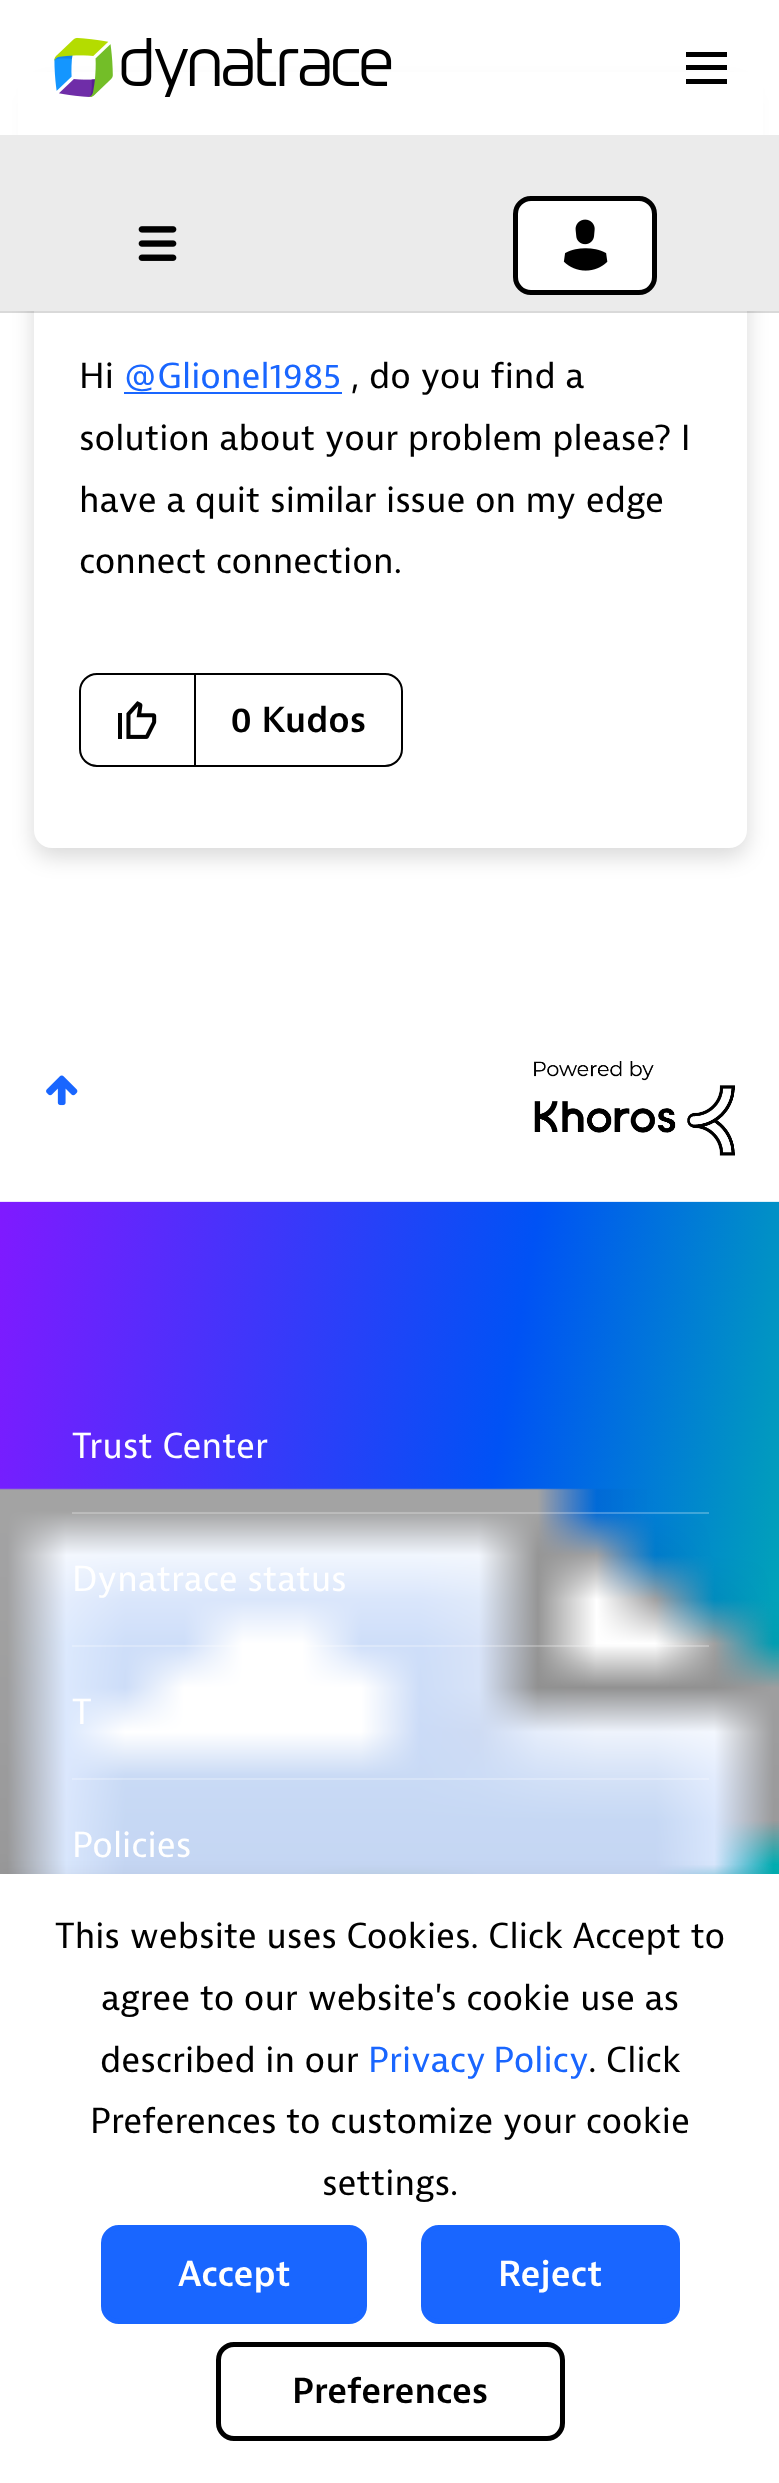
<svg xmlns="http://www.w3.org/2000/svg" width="779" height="2483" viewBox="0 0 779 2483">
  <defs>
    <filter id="blur1" x="-50%" y="-200%" width="200%" height="500%"><feGaussianBlur stdDeviation="11"/></filter>
  </defs>
  <rect width="100%" height="100%" fill="#ffffff"/>
  <rect x="34" y="88" width="713" height="769" rx="18" fill="#02091b" fill-opacity="0.15" filter="url(#blur1)"/>
  <rect x="34" y="79" width="713" height="769" rx="18" fill="#ffffff"/>
  <rect x="18" y="72" width="745" height="63" fill="#ffffff"/>
  <image x="54" y="37" width="338" height="60" href="img1.png"/>
  <rect x="686" y="52" width="41" height="5" fill="#000000"/>
  <rect x="686" y="65" width="41" height="5" fill="#000000"/>
  <rect x="686" y="79" width="41" height="5" fill="#000000"/>
  <path d="M0 310V313H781V2V310Z" fill="#000000" fill-opacity="0.15"/>
  <rect x="0" y="135" width="779" height="176" fill="#ebebeb"/>
  <image x="138" y="226" width="39" height="35" href="img2.png"/>
  <rect x="515.5" y="198.5" width="139" height="94" rx="15.5" fill="#ffffff" stroke="#000000" stroke-width="5"/>
  <image x="563" y="219" width="45" height="52" href="img3.png"/>
  <text x="79" y="388" font-family="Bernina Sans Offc" font-size="36" fill="#000000">Hi</text>
  <text x="123" y="388" font-family="Bernina Sans Offc" font-size="36" fill="#1966ff">@Glionel1985</text>
  <rect x="124" y="392" width="218" height="2" fill="#1966ff"/>
  <text x="351" y="388" font-family="Bernina Sans Offc" font-size="36" fill="#000000">, do you find a</text>
  <text x="79" y="450" font-family="Bernina Sans Offc" font-size="36" fill="#000000">solution about your problem please? I</text>
  <text x="79" y="512" font-family="Bernina Sans Offc" font-size="36" fill="#000000">have a quit similar issue on my edge</text>
  <text x="79" y="573" font-family="Bernina Sans Offc" font-size="36" fill="#000000">connect connection.</text>
  <rect x="80" y="674" width="322" height="92" rx="17" fill="none" stroke="#000000" stroke-width="2"/>
  <rect x="194" y="675" width="2" height="90" fill="#000000"/>
  <image x="118" y="701" width="39" height="38" href="img4.png"/>
  <text x="230" y="732" font-family="Bernina Sans Offc" font-size="36" font-weight="600" fill="#000000">0 Kudos</text>
  <image x="46" y="1075" width="32" height="31" href="img5.png"/>
  <image x="534" y="1061" width="201" height="95" href="img6.png"/>
  <image x="0" y="1201" width="779" height="673" href="img7.png"/>
  <rect x="72" y="1512" width="637" height="2" fill="#ffffff" fill-opacity="0.25"/>
  <text x="72" y="1458" font-family="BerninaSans" font-size="36" fill="#ffffff">Trust Center</text>
  <rect x="72" y="1645" width="637" height="2" fill="#ffffff" fill-opacity="0.25"/>
  <text x="72" y="1591" font-family="BerninaSans" font-size="36" fill="#ffffff">Dynatrace status</text>
  <rect x="72" y="1778" width="637" height="2" fill="#ffffff" fill-opacity="0.25"/>
  <text x="72" y="1724" font-family="BerninaSans" font-size="36" fill="#ffffff">T</text>
  <text x="72" y="1857" font-family="BerninaSans" font-size="36" fill="#ffffff">Policies</text>
  <rect x="0" y="1883" width="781" height="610" fill="#02091b" fill-opacity="0.15" filter="url(#blur1)"/>
  <rect x="0" y="1874" width="779" height="609" fill="#ffffff"/>
  <text x="55" y="1948" font-family="Bernina Sans Offc" font-size="36" fill="#000000">This website uses Cookies. Click Accept to</text>
  <text x="101" y="2010" font-family="Bernina Sans Offc" font-size="36" fill="#000000">agree to our website's cookie use as</text>
  <text x="100" y="2072" font-family="Bernina Sans Offc" font-size="36" fill="#000000">described in our</text>
  <text x="368" y="2072" word-spacing="-2" font-family="Bernina Sans Offc" font-size="36" fill="#1966ff">Privacy Policy</text>
  <text x="588" y="2072" font-family="Bernina Sans Offc" font-size="36" fill="#000000">. Click</text>
  <text x="90" y="2133" font-family="Bernina Sans Offc" font-size="36" fill="#000000">Preferences to customize your cookie</text>
  <text x="322" y="2195" font-family="Bernina Sans Offc" font-size="36" fill="#000000">settings.</text>
  <rect x="103.5" y="2227.5" width="261" height="94" rx="15.5" fill="#1966ff" stroke="#1966ff" stroke-width="5"/>
  <text x="178" y="2286" font-family="Bernina Sans Offc" font-size="36" font-weight="600" fill="#ffffff">Accept</text>
  <rect x="423.5" y="2227.5" width="254" height="94" rx="15.5" fill="#1966ff" stroke="#1966ff" stroke-width="5"/>
  <text x="498" y="2286" font-family="Bernina Sans Offc" font-size="36" font-weight="600" fill="#ffffff">Reject</text>
  <rect x="218.5" y="2344.5" width="344" height="94" rx="15.5" fill="none" stroke="#000000" stroke-width="5"/>
  <text x="292" y="2403" font-family="Bernina Sans Offc" font-size="36" font-weight="600" fill="#000000">Preferences</text>
</svg>
